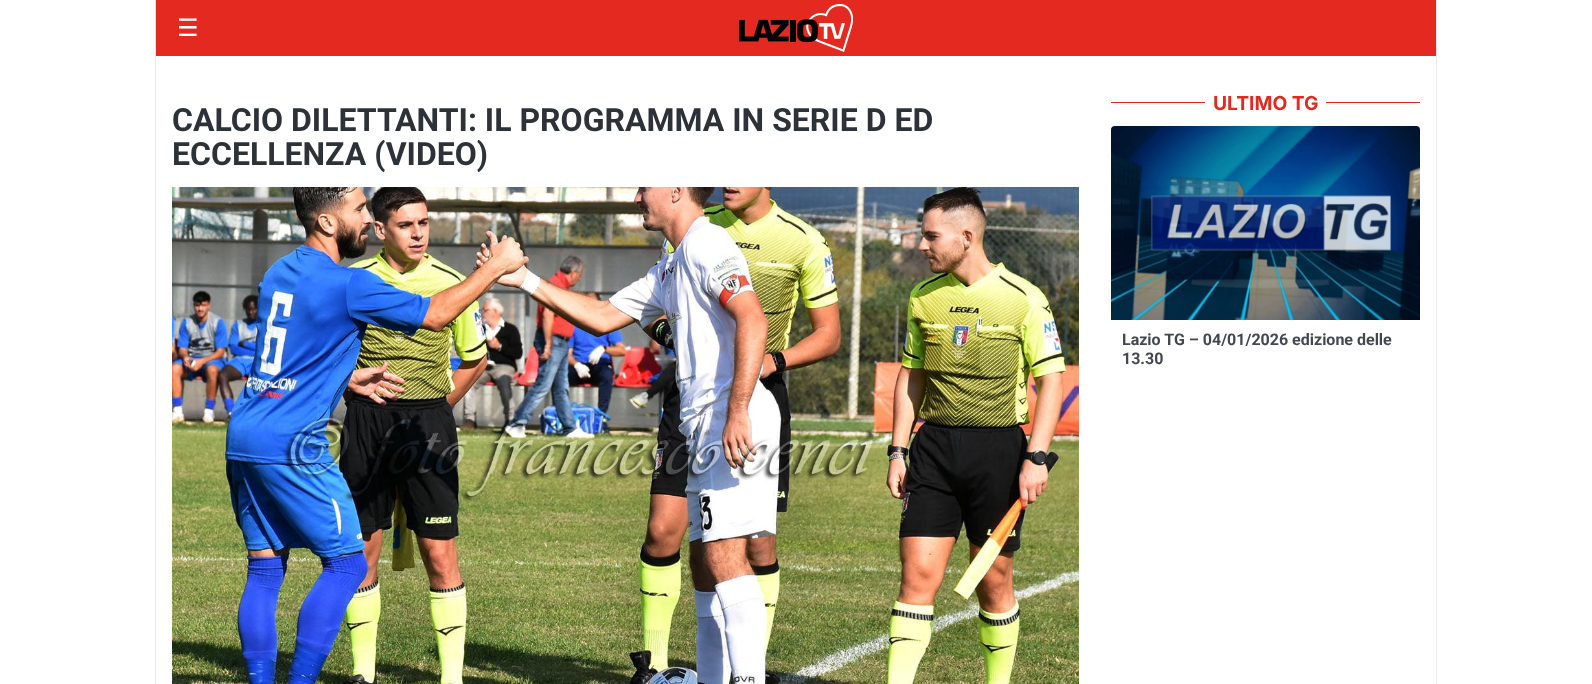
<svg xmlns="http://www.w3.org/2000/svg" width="1592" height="684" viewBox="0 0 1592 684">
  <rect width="100%" height="100%" fill="#ffffff"/>
  <rect x="1436" y="0" width="1" height="684" fill="#e7eaf0"/>
  <rect x="155" y="0" width="1" height="684" fill="#e7eaf0"/>
  <rect x="156" y="0" width="1280" height="56" fill="#e42920"/>
  <text x="177" y="36" font-family="DejaVu Sans" font-size="24" fill="#ffffff">☰</text>
  <image x="739" y="4" width="114" height="48" href="img1.png"/>
  <text x="172" y="131" font-family="Roboto" font-size="32" font-weight="bold" fill="#2d3138">CALCIO DILETTANTI: IL PROGRAMMA IN SERIE D ED</text>
  <text x="172" y="165" font-family="Roboto" font-size="32" font-weight="bold" fill="#2d3138">ECCELLENZA (VIDEO)</text>
  <image x="172" y="187" width="907" height="497" href="img2.png"/>
  <rect x="1111" y="102" width="309" height="1" fill="#e42920"/>
  <rect x="1205" y="102" width="121" height="1" fill="#ffffff"/>
  <text x="1213" y="110" font-family="Inter" font-size="19.25" font-weight="bold" fill="#e42920">ULTIMO TG</text>
  <image x="1111" y="126" width="309" height="194" href="img3.png"/>
  <text x="1122" y="345" font-family="Roboto" font-size="16" font-weight="bold" fill="#424751">Lazio TG – 04/01/2026 edizione delle</text>
  <text x="1122" y="364" font-family="Roboto" font-size="16" font-weight="bold" fill="#424751">13.30</text>
</svg>
